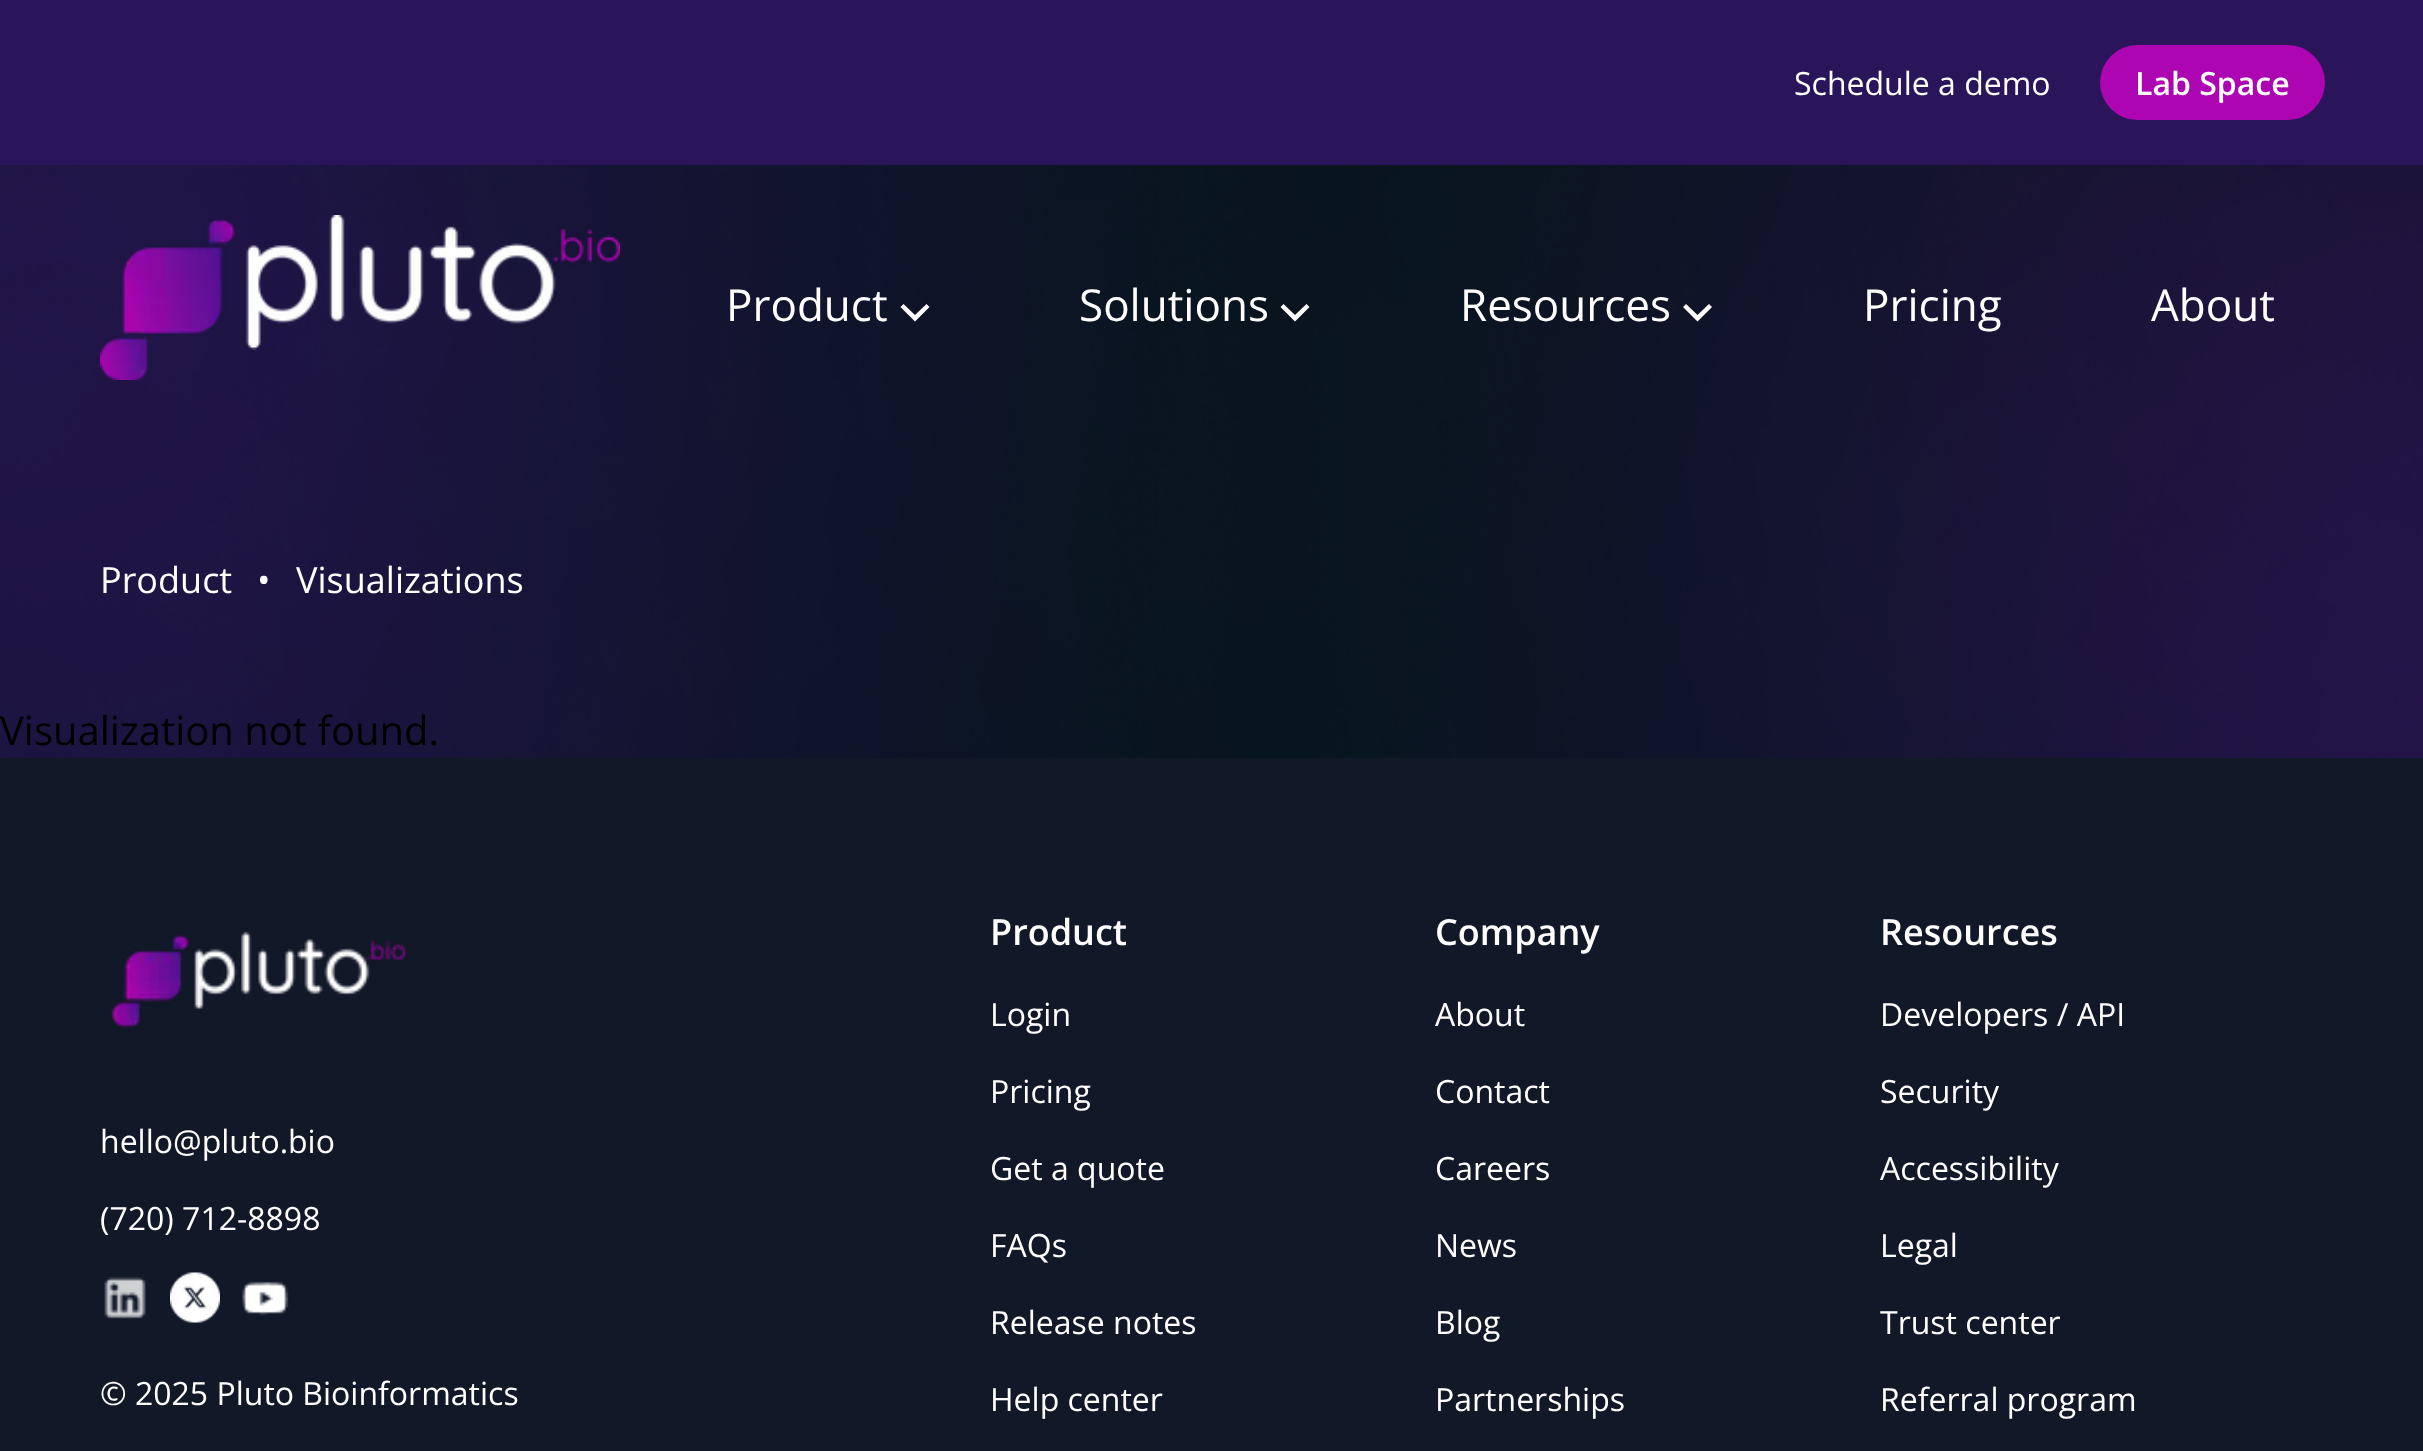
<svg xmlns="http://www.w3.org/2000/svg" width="2423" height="1451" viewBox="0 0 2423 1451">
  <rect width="100%" height="100%" fill="#ffffff"/>
  <image x="0" y="165" width="2423" height="593" href="img1.png"/>
  <rect x="0" y="0" width="2423" height="165" fill="#2b155a"/>
  <text x="1794" y="95" font-family="Open Sans" font-size="32" fill="#ffffff">Schedule a demo</text>
  <rect x="2100" y="45" width="225" height="75" rx="37.5" fill="#ad05b1"/>
  <text x="2135" y="95" font-family="Open Sans" font-size="32" font-weight="600" fill="#ffffff">Lab Space</text>
  <image x="100" y="215" width="520" height="165" href="img2.png"/>
  <text x="726" y="321" font-family="Open Sans" font-size="44" fill="#ffffff">Product</text>
  <path d="M915 315L926.5 304L929.5 307L915 321.5L900.5 307L903.5 304Z" fill="#ffffff"/>
  <text x="1079" y="321" font-family="Open Sans" font-size="44" fill="#ffffff">Solutions</text>
  <path d="M1295 315L1306.5 304L1309.5 307L1295 321.5L1280.5 307L1283.5 304Z" fill="#ffffff"/>
  <text x="1460" y="321" font-family="Open Sans" font-size="44" fill="#ffffff">Resources</text>
  <path d="M1697.5 315L1709 304L1712 307L1697.5 321.5L1683 307L1686 304Z" fill="#ffffff"/>
  <text x="1863" y="321" font-family="Open Sans" font-size="44" fill="#ffffff">Pricing</text>
  <text x="2151" y="321" font-family="Open Sans" font-size="44" fill="#ffffff">About</text>
  <text x="100" y="593" font-family="Open Sans" font-size="36" fill="#ffffff">Product</text>
  <text x="257" y="593" font-family="Open Sans" font-size="36" fill="#ffffff">•</text>
  <text x="296" y="593" font-family="Open Sans" font-size="36" fill="#ffffff">Visualizations</text>
  <text x="0" y="745" font-family="Open Sans" font-size="40" fill="#000000">Visualization not found.</text>
  <rect x="0" y="758" width="2423" height="693" fill="#111827"/>
  <image x="111" y="931" width="295" height="98" href="img3.png"/>
  <text x="100" y="1153" font-family="Open Sans" font-size="32" fill="#ffffff">hello@pluto.bio</text>
  <text x="100" y="1230" font-family="Open Sans" font-size="32" fill="#ffffff">(720) 712-8898</text>
  <image x="104" y="1277" width="42" height="42" href="img4.png"/>
  <image x="170" y="1272" width="50" height="51" href="img5.png"/>
  <image x="242" y="1281" width="47" height="35" href="img6.png"/>
  <text x="100" y="1405" font-family="Open Sans" font-size="32" fill="#ffffff">© 2025 Pluto Bioinformatics</text>
  <text x="990" y="945" font-family="Open Sans" font-size="36" font-weight="600" fill="#ffffff">Product</text>
  <text x="990" y="1026" font-family="Open Sans" font-size="32" fill="#ffffff">Login</text>
  <text x="990" y="1103" font-family="Open Sans" font-size="32" fill="#ffffff">Pricing</text>
  <text x="990" y="1180" font-family="Open Sans" font-size="32" fill="#ffffff">Get a quote</text>
  <text x="990" y="1257" font-family="Open Sans" font-size="32" fill="#ffffff">FAQs</text>
  <text x="990" y="1334" font-family="Open Sans" font-size="32" fill="#ffffff">Release notes</text>
  <text x="990" y="1411" font-family="Open Sans" font-size="32" fill="#ffffff">Help center</text>
  <text x="1435" y="945" font-family="Open Sans" font-size="36" font-weight="600" fill="#ffffff">Company</text>
  <text x="1435" y="1026" font-family="Open Sans" font-size="32" fill="#ffffff">About</text>
  <text x="1435" y="1103" font-family="Open Sans" font-size="32" fill="#ffffff">Contact</text>
  <text x="1435" y="1180" font-family="Open Sans" font-size="32" fill="#ffffff">Careers</text>
  <text x="1435" y="1257" font-family="Open Sans" font-size="32" fill="#ffffff">News</text>
  <text x="1435" y="1334" font-family="Open Sans" font-size="32" fill="#ffffff">Blog</text>
  <text x="1435" y="1411" font-family="Open Sans" font-size="32" fill="#ffffff">Partnerships</text>
  <text x="1880" y="945" font-family="Open Sans" font-size="36" font-weight="600" fill="#ffffff">Resources</text>
  <text x="1880" y="1026" font-family="Open Sans" font-size="32" fill="#ffffff">Developers / API</text>
  <text x="1880" y="1103" font-family="Open Sans" font-size="32" fill="#ffffff">Security</text>
  <text x="1880" y="1180" font-family="Open Sans" font-size="32" fill="#ffffff">Accessibility</text>
  <text x="1880" y="1257" font-family="Open Sans" font-size="32" fill="#ffffff">Legal</text>
  <text x="1880" y="1334" font-family="Open Sans" font-size="32" fill="#ffffff">Trust center</text>
  <text x="1880" y="1411" font-family="Open Sans" font-size="32" fill="#ffffff">Referral program</text>
</svg>
